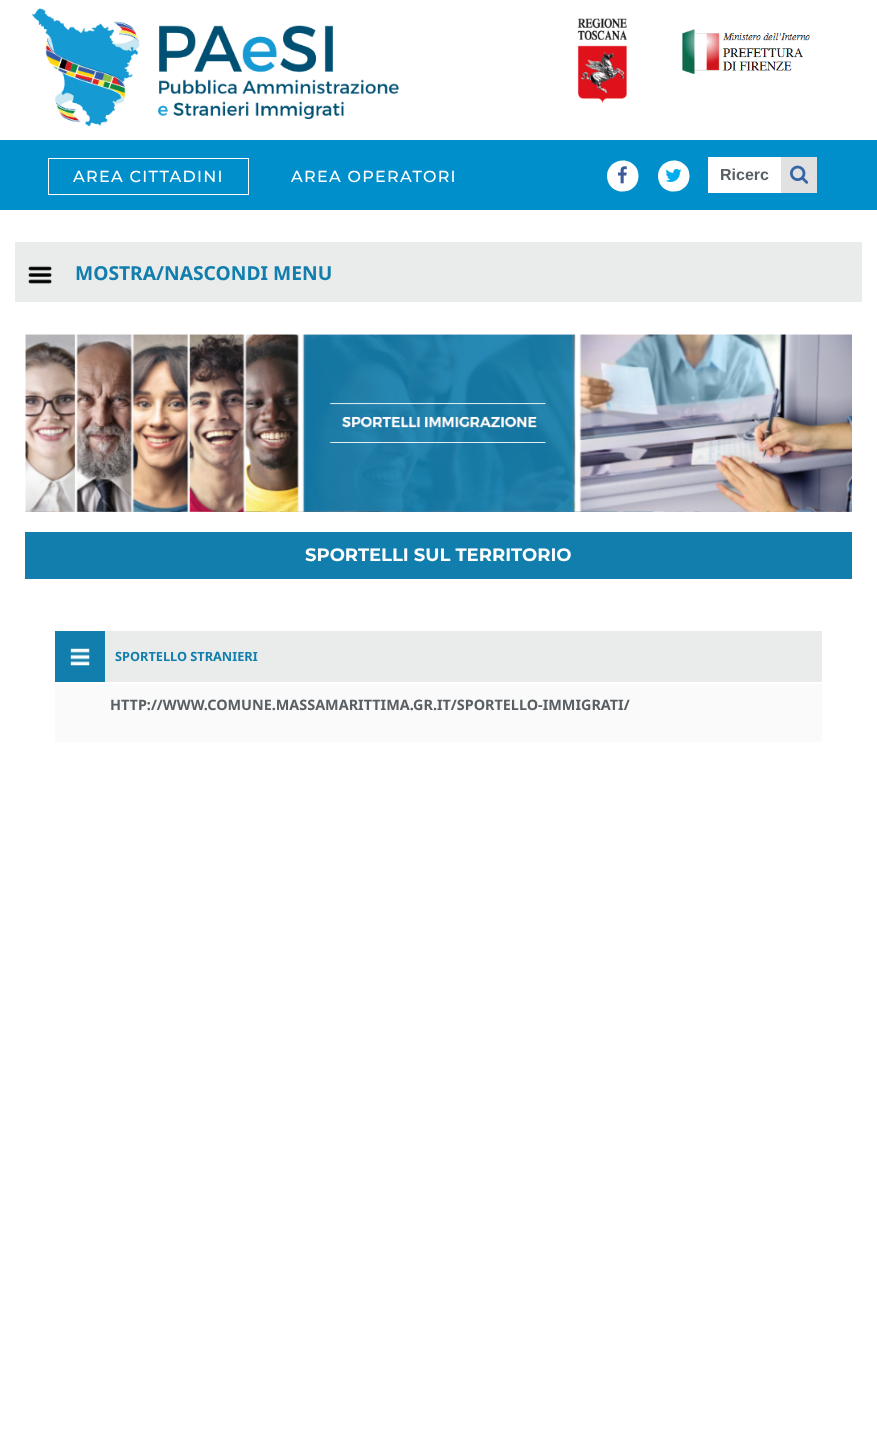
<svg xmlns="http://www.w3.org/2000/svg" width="877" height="1443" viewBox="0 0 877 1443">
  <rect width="100%" height="100%" fill="#ffffff"/>
  <image x="32" y="8" width="367" height="119" href="img1.png"/>
  <image x="577" y="18" width="51" height="85" href="img2.png"/>
  <image x="682" y="29" width="128" height="45" href="img3.png"/>
  <rect x="0" y="140" width="877" height="70" fill="#008fca"/>
  <rect x="48.5" y="158.5" width="200" height="36" fill="none" stroke="#ffffff"/>
  <text x="73" y="182" font-family="Montserrat" font-size="16" font-weight="500" letter-spacing="1.3" fill="#ffffff">AREA CITTADINI</text>
  <text x="291" y="182" font-family="Montserrat" font-size="16" font-weight="500" letter-spacing="1.3" fill="#ffffff">AREA OPERATORI</text>
  <path d="M636.5 168C638 170.5 638.5 174 638.5 177C637.5 192.5 617 197 609 184C607.5 181 607 178 607 175C608 159.5 628.5 155 636.5 168Z" fill="#ffffff"/>
  <image x="617" y="166" width="10" height="18" href="img4.png"/>
  <path d="M687.5 168C689 170.5 689.5 174 689.5 177C688.5 192.5 668 197 660 184C658.5 181 658 178 658 175C659 159.5 679.5 155 687.5 168Z" fill="#ffffff"/>
  <image x="665" y="168" width="17" height="14" href="img5.png"/>
  <rect x="708" y="157" width="73" height="36" fill="#ffffff"/>
  <text x="720" y="180" font-family="Liberation Sans" font-size="16" font-weight="bold" fill="#595f62">Ricerc</text>
  <rect x="781" y="157" width="36" height="36" fill="#e1e1e1"/>
  <image x="790" y="165" width="19" height="19" href="img6.png"/>
  <rect x="15" y="242" width="847" height="60" fill="#e9ecea"/>
  <image x="28" y="266" width="24" height="18" href="img7.png"/>
  <text x="75" y="280" font-family="Noto Sans" font-size="19.25" font-weight="bold" fill="#117ead">MOSTRA/NASCONDI MENU</text>
  <image x="25" y="334" width="827" height="178" href="img8.png"/>
  <rect x="25" y="532" width="827" height="47" fill="#117ead"/>
  <text x="305" y="561" font-family="Montserrat" font-size="18" font-weight="bold" fill="#ffffff">SPORTELLI SUL TERRITORIO</text>
  <rect x="105" y="631" width="717" height="51" fill="#e9ecea"/>
  <rect x="55" y="631" width="50" height="51" fill="#117ead"/>
  <image x="70" y="648" width="20" height="18" href="img9.png"/>
  <text x="115" y="661" font-family="Noto Sans" font-size="12.75" font-weight="bold" fill="#117ead">SPORTELLO STRANIERI</text>
  <rect x="55" y="684" width="767" height="58" fill="#fafafa"/>
  <text x="110" y="710" font-family="Noto Sans" font-size="14.4" font-weight="bold" fill="#595f62">HTTP://WWW.COMUNE.MASSAMARITTIMA.GR.IT/SPORTELLO-IMMIGRATI/</text>
</svg>
